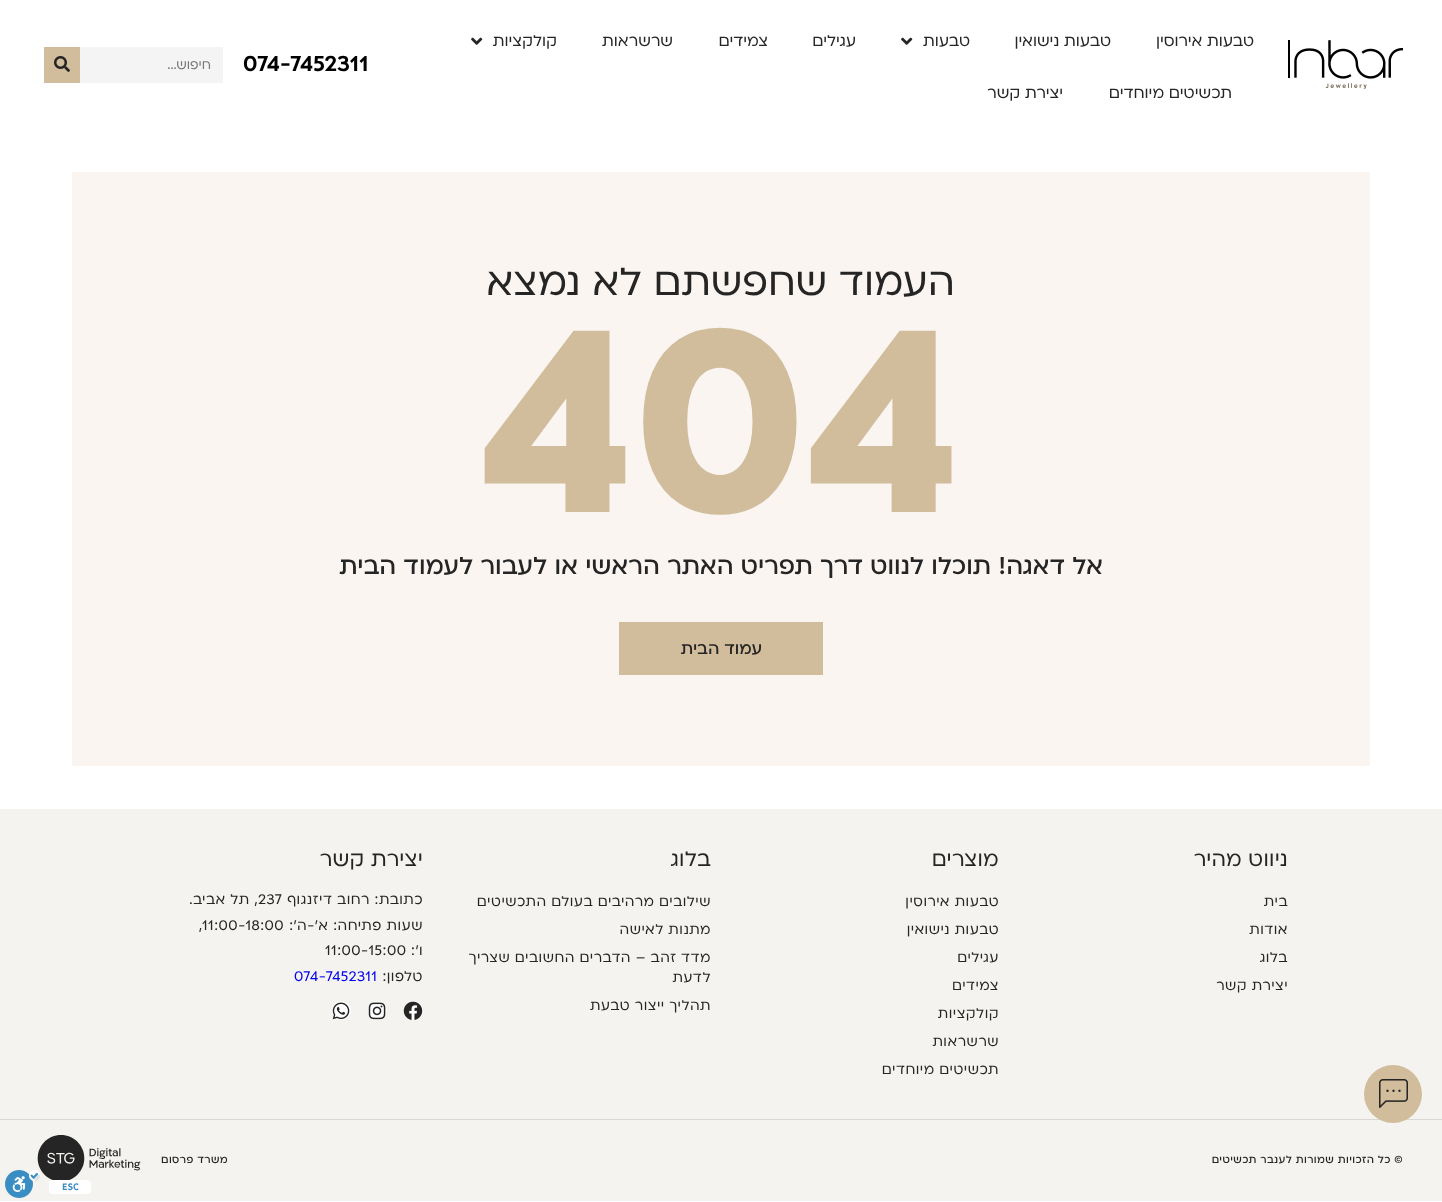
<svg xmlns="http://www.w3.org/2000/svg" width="1442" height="1202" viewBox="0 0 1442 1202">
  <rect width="100%" height="100%" fill="#ffffff"/>
  <image x="1288" y="40" width="115" height="49" href="img1.png"/>
  <text x="1254" y="46" font-family="'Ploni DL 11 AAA'" font-size="18" direction="rtl" fill="#252525">טבעות אירוסין</text>
  <text x="1111" y="46" font-family="'Ploni DL 11 AAA'" font-size="18" direction="rtl" fill="#252525">טבעות נישואין</text>
  <text x="970" y="46" font-family="'Ploni DL 11 AAA'" font-size="18" direction="rtl" fill="#252525">טבעות</text>
  <image x="901" y="37" width="12" height="8" href="img2.png"/>
  <text x="856" y="46" font-family="'Ploni DL 11 AAA'" font-size="18" direction="rtl" fill="#252525">עגילים</text>
  <text x="768" y="46" font-family="'Ploni DL 11 AAA'" font-size="18" direction="rtl" fill="#252525">צמידים</text>
  <text x="673" y="46" font-family="'Ploni DL 11 AAA'" font-size="18" direction="rtl" fill="#252525">שרשראות</text>
  <text x="557" y="46" font-family="'Ploni DL 11 AAA'" font-size="18" direction="rtl" fill="#252525">קולקציות</text>
  <image x="471" y="37" width="12" height="8" href="img2.png"/>
  <text x="1232" y="98" font-family="'Ploni DL 11 AAA'" font-size="18" direction="rtl" fill="#252525">תכשיטים מיוחדים</text>
  <text x="1063" y="98" font-family="'Ploni DL 11 AAA'" font-size="18" direction="rtl" fill="#252525">יצירת קשר</text>
  <text x="243" y="71" font-family="'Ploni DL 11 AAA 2'" font-size="25" font-weight="bold" letter-spacing="0.25" fill="#000000">074-7452311</text>
  <rect x="80" y="47" width="143" height="36" fill="#f4f4f4"/>
  <text x="211" y="69" font-family="'Ploni DL 11 AAA'" font-size="15" direction="rtl" fill="#787878">חיפוש...</text>
  <rect x="44" y="47" width="36" height="36" fill="#d1bc9c"/>
  <image x="54" y="56" width="16" height="16" href="img3.png"/>
  <rect x="72" y="172" width="1298" height="594" fill="#faf5f1"/>
  <text x="955" y="295" font-family="'Ploni DL 11 AAA'" font-size="45" direction="rtl" fill="#252525">העמוד שחפשתם לא נמצא</text>
  <text x="481" y="512" font-family="'Ploni DL 11 AAA'" font-size="300" font-weight="bold" fill="#d1bc9c">404</text>
  <text x="1103" y="574" font-family="'Ploni DL 11 AAA'" font-size="28" font-weight="500" direction="rtl" fill="#252525">אל דאגה! תוכלו לנווט דרך תפריט האתר הראשי או לעבור לעמוד הבית</text>
  <rect x="619" y="622" width="204" height="53" fill="#d1bc9c"/>
  <text x="762" y="654" font-family="'Ploni DL 11 AAA'" font-size="19" font-weight="500" direction="rtl" fill="#252525">עמוד הבית</text>
  <rect x="0" y="809" width="1442" height="310" fill="#f4f3ef"/>
  <text x="1288" y="866" font-family="'Ploni DL 11 AAA'" font-size="24" letter-spacing="0.25" direction="rtl" fill="#252525">ניווט מהיר</text>
  <text x="1288" y="906" font-family="'Ploni DL 11 AAA'" font-size="16" letter-spacing="0.5" direction="rtl" fill="#252525">בית</text>
  <text x="1288" y="934" font-family="'Ploni DL 11 AAA'" font-size="16" letter-spacing="0.5" direction="rtl" fill="#252525">אודות</text>
  <text x="1288" y="962" font-family="'Ploni DL 11 AAA'" font-size="16" letter-spacing="0.5" direction="rtl" fill="#252525">בלוג</text>
  <text x="1288" y="990" font-family="'Ploni DL 11 AAA'" font-size="16" letter-spacing="0.5" direction="rtl" fill="#252525">יצירת קשר</text>
  <text x="999" y="866" font-family="'Ploni DL 11 AAA'" font-size="24" letter-spacing="0.25" direction="rtl" fill="#252525">מוצרים</text>
  <text x="999" y="906" font-family="'Ploni DL 11 AAA'" font-size="16" letter-spacing="0.5" direction="rtl" fill="#252525">טבעות אירוסין</text>
  <text x="999" y="934" font-family="'Ploni DL 11 AAA'" font-size="16" letter-spacing="0.5" direction="rtl" fill="#252525">טבעות נישואין</text>
  <text x="999" y="962" font-family="'Ploni DL 11 AAA'" font-size="16" letter-spacing="0.5" direction="rtl" fill="#252525">עגילים</text>
  <text x="999" y="990" font-family="'Ploni DL 11 AAA'" font-size="16" letter-spacing="0.5" direction="rtl" fill="#252525">צמידים</text>
  <text x="999" y="1018" font-family="'Ploni DL 11 AAA'" font-size="16" letter-spacing="0.5" direction="rtl" fill="#252525">קולקציות</text>
  <text x="999" y="1046" font-family="'Ploni DL 11 AAA'" font-size="16" letter-spacing="0.5" direction="rtl" fill="#252525">שרשראות</text>
  <text x="999" y="1074" font-family="'Ploni DL 11 AAA'" font-size="16" letter-spacing="0.5" direction="rtl" fill="#252525">תכשיטים מיוחדים</text>
  <text x="711" y="866" font-family="'Ploni DL 11 AAA'" font-size="24" letter-spacing="0.25" direction="rtl" fill="#252525">בלוג</text>
  <text x="711" y="906" font-family="'Ploni DL 11 AAA'" font-size="16" letter-spacing="0.5" direction="rtl" fill="#252525">שילובים מרהיבים בעולם התכשיטים</text>
  <text x="711" y="934" font-family="'Ploni DL 11 AAA'" font-size="16" letter-spacing="0.5" direction="rtl" fill="#252525">מתנות לאישה</text>
  <text x="711" y="962" font-family="'Ploni DL 11 AAA'" font-size="16" letter-spacing="0.5" direction="rtl" fill="#252525">מדד זהב – הדברים החשובים שצריך</text>
  <text x="711" y="982" font-family="'Ploni DL 11 AAA'" font-size="16" letter-spacing="0.5" direction="rtl" fill="#252525">לדעת</text>
  <text x="711" y="1010" font-family="'Ploni DL 11 AAA'" font-size="16" letter-spacing="0.5" direction="rtl" fill="#252525">תהליך ייצור טבעת</text>
  <text x="423" y="866" font-family="'Ploni DL 11 AAA'" font-size="24" letter-spacing="0.25" direction="rtl" fill="#252525">יצירת קשר</text>
  <text x="423" y="904" font-family="'Ploni DL 11 AAA'" font-size="16" letter-spacing="0.5" direction="rtl" fill="#252525">כתובת: רחוב דיזנגוף</text>
  <text x="258" y="904" font-family="'Ploni DL 11 AAA'" font-size="16" letter-spacing="0.5" fill="#252525">237</text>
  <text x="258" y="904" font-family="'Ploni DL 11 AAA'" font-size="16" letter-spacing="0.5" direction="rtl" fill="#252525">, תל אביב.</text>
  <text x="423" y="930" font-family="'Ploni DL 11 AAA'" font-size="16" letter-spacing="0.5" direction="rtl" fill="#252525">שעות פתיחה: א’-ה’:</text>
  <text x="199" y="930" font-family="'Ploni DL 11 AAA'" font-size="16" letter-spacing="0.5" fill="#252525">,11:00-18:00</text>
  <text x="423" y="955" font-family="'Ploni DL 11 AAA'" font-size="16" letter-spacing="0.5" direction="rtl" fill="#252525">ו’:</text>
  <text x="325" y="955" font-family="'Ploni DL 11 AAA'" font-size="16" letter-spacing="0.5" fill="#252525">11:00-15:00</text>
  <text x="423" y="981" font-family="'Ploni DL 11 AAA'" font-size="16" letter-spacing="0.5" direction="rtl" fill="#252525">טלפון:</text>
  <text x="294" y="981" font-family="'Ploni DL 11 AAA'" font-size="16" letter-spacing="0.5" fill="#0000ee">074-7452311</text>
  <circle cx="413.5" cy="1010.5" r="9.5" fill="#ffffff"/>
  <image x="403" y="1001" width="20" height="19" href="img4.png"/>
  <circle cx="377.5" cy="1010.5" r="9.5" fill="#ffffff"/>
  <image x="368" y="1002" width="18" height="18" href="img5.png"/>
  <circle cx="341.5" cy="1010.5" r="9.5" fill="#ffffff"/>
  <image x="332" y="1002" width="18" height="18" href="img6.png"/>
  <rect x="0" y="1120" width="1442" height="81" fill="#f4f3ef"/>
  <rect x="0" y="1119" width="1442" height="1" fill="#d9d8d5"/>
  <text x="1403" y="1163" font-family="'Ploni DL 11 AAA'" font-size="12" font-weight="500" letter-spacing="0.4" direction="rtl" fill="#252525">© כל הזכויות שמורות לענבר תכשיטים</text>
  <circle cx="1393" cy="1094" r="29" fill="#d1bc9c"/>
  <image x="1379" y="1079" width="29" height="29" href="img7.png"/>
  <text x="228" y="1163" font-family="'Ploni DL 11 AAA'" font-size="12" font-weight="500" letter-spacing="0.4" direction="rtl" fill="#252525">משרד פרסום</text>
  <image x="37" y="1135" width="104" height="45" href="img8.png"/>
  <rect x="49" y="1180" width="42" height="14" rx="4" fill="#ffffff"/>
  <text x="62" y="1190" font-family="Assistant" font-size="10" font-weight="bold" fill="#3a8dc2">ESC</text>
  <image x="5" y="1170" width="35" height="28" href="img9.png"/>
</svg>
